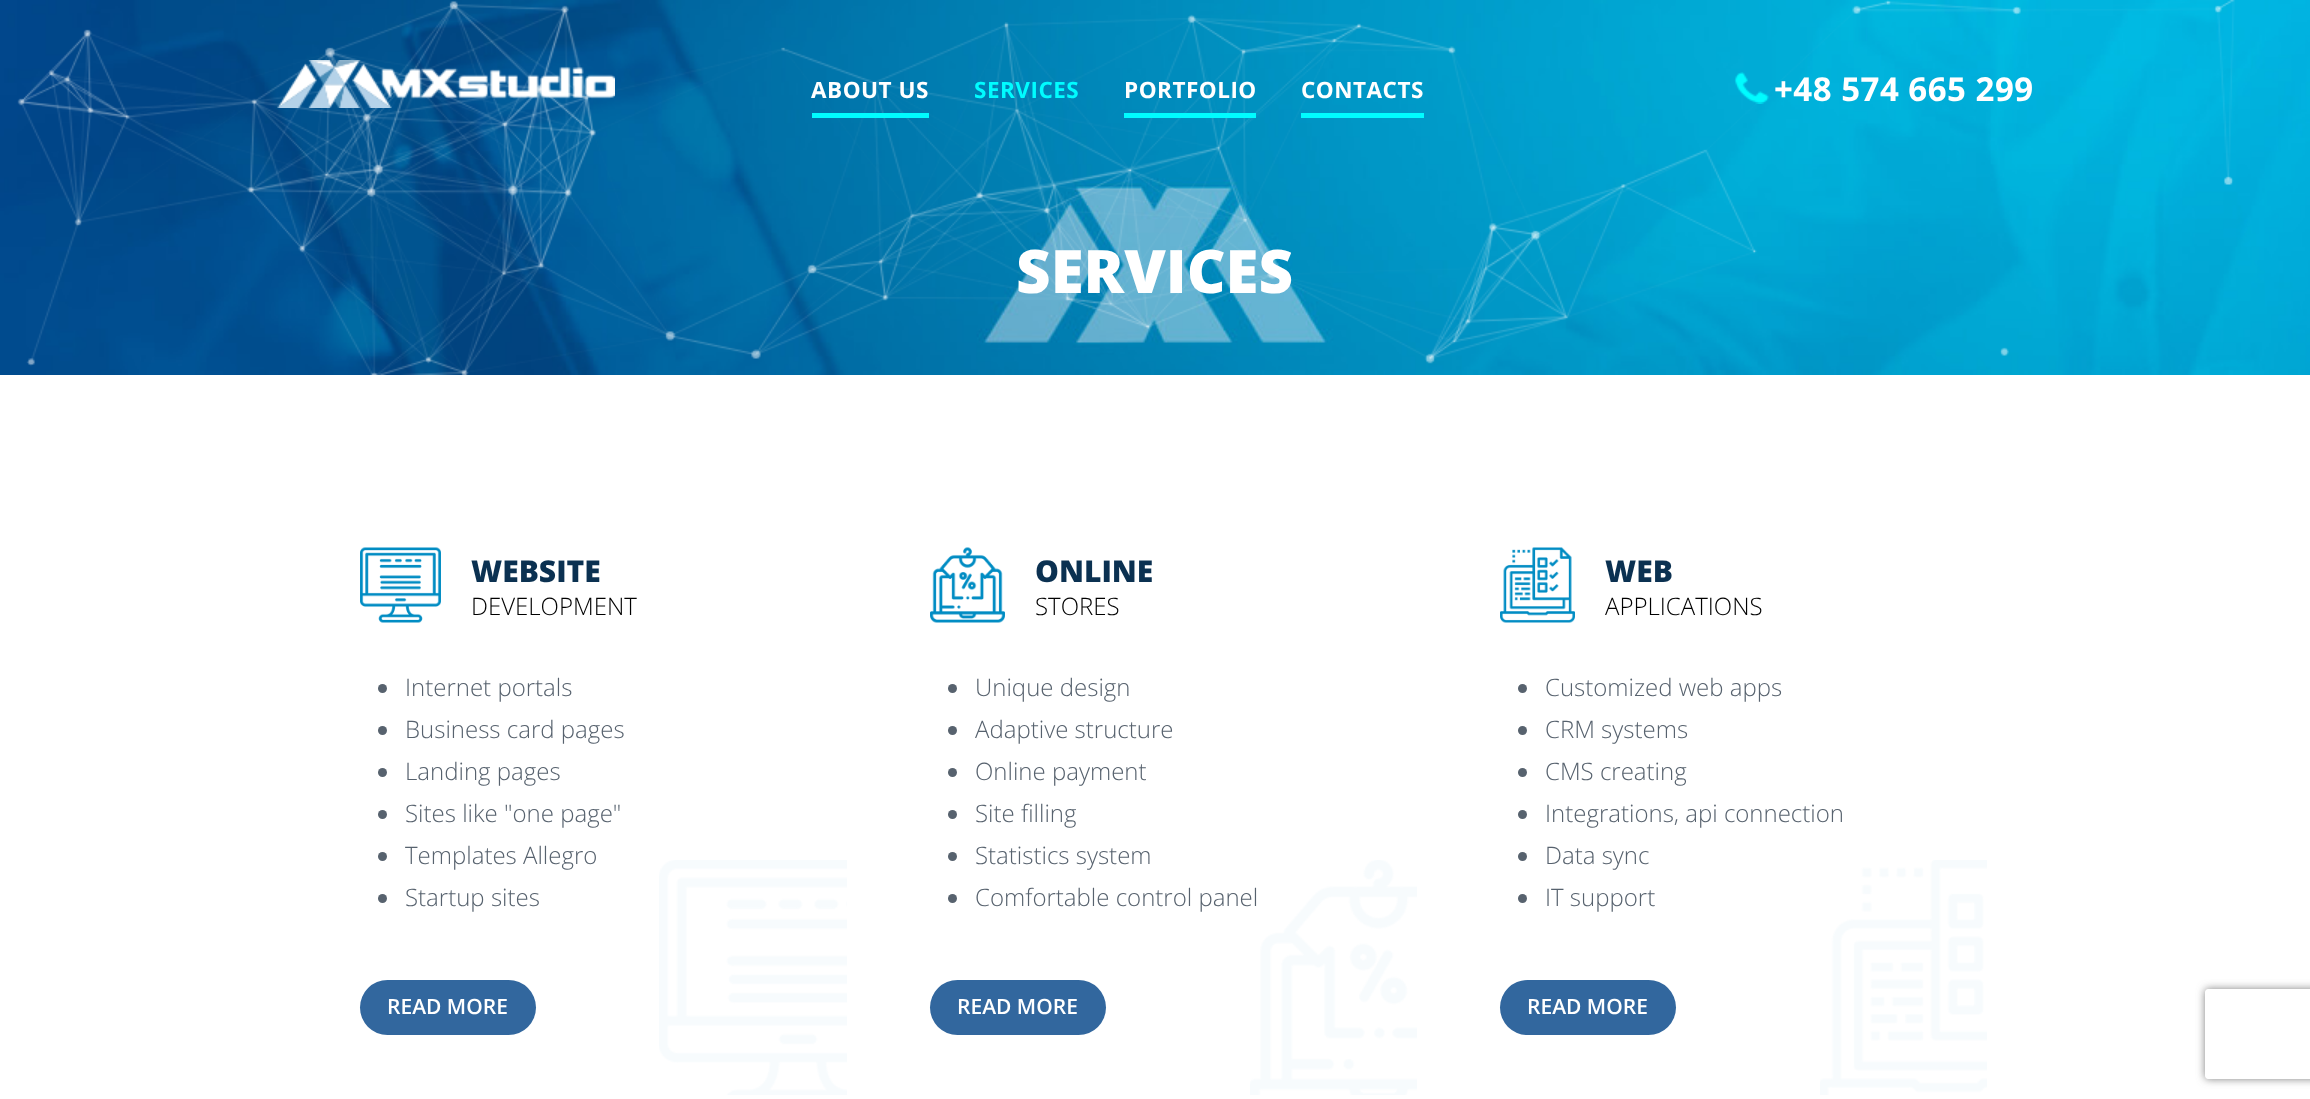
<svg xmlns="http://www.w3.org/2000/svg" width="2310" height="1099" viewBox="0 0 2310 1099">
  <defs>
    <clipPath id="clip1"><path d="M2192 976H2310V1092H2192ZM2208 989H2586C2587.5 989 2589 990.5 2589 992V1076C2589 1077.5 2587.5 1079 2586 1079H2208C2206.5 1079 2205 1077.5 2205 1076V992C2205 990.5 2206.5 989 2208 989Z" clip-rule="evenodd"/></clipPath>
    <filter id="blur1" x="-50%" y="-200%" width="200%" height="500%"><feGaussianBlur stdDeviation="4"/></filter>
  </defs>
  <rect width="100%" height="100%" fill="#ffffff"/>
  <image x="0" y="0" width="2310" height="375" href="img3.png"/>
  <text x="1016" y="293" font-family="Open Sans" font-size="60" font-weight="800" fill="#ffffff">SERVICES</text>
  <image x="17" y="0" width="2218" height="375" href="img4.png"/>
  <image x="277" y="60" width="338" height="48" href="img1.png"/>
  <text x="811" y="98" font-family="Open Sans" font-size="22.5" font-weight="bold" letter-spacing="0.5" fill="#ffffff">ABOUT US</text>
  <rect x="812" y="113" width="117" height="5" fill="#00fcff"/>
  <text x="974" y="98" font-family="Open Sans" font-size="22.5" font-weight="bold" letter-spacing="0.5" fill="#00fcff">SERVICES</text>
  <text x="1124" y="98" font-family="Open Sans" font-size="22.5" font-weight="bold" letter-spacing="0.5" fill="#ffffff">PORTFOLIO</text>
  <rect x="1124" y="113" width="132" height="5" fill="#00fcff"/>
  <text x="1301" y="98" font-family="Open Sans" font-size="22.5" font-weight="bold" letter-spacing="0.5" fill="#ffffff">CONTACTS</text>
  <rect x="1301" y="113" width="123" height="5" fill="#00fcff"/>
  <image x="1734" y="72" width="35" height="32" href="img2.png"/>
  <text x="1774" y="101" font-family="Open Sans" font-size="33" font-weight="bold" letter-spacing="0.5" fill="#ffffff">+48 574 665 299</text>
  <image x="360" y="547" width="81" height="76" href="img5.png"/>
  <text x="471" y="582" font-family="Open Sans" font-size="30" font-weight="800" fill="#0b3151">WEBSITE</text>
  <text x="471" y="615" font-family="Open Sans" font-size="24" font-weight="300" fill="#000000">DEVELOPMENT</text>
  <circle cx="382.5" cy="688.5" r="4.5" fill="#57626e"/>
  <text x="405" y="696" font-family="Open Sans" font-size="24" font-weight="300" fill="#57626e">Internet portals</text>
  <circle cx="382.5" cy="730.5" r="4.5" fill="#57626e"/>
  <text x="405" y="738" font-family="Open Sans" font-size="24" font-weight="300" fill="#57626e">Business card pages</text>
  <circle cx="382.5" cy="772.5" r="4.5" fill="#57626e"/>
  <text x="405" y="780" font-family="Open Sans" font-size="24" font-weight="300" fill="#57626e">Landing pages</text>
  <circle cx="382.5" cy="814.5" r="4.5" fill="#57626e"/>
  <text x="405" y="822" font-family="Open Sans" font-size="24" font-weight="300" fill="#57626e">Sites like "one page"</text>
  <circle cx="382.5" cy="856.5" r="4.5" fill="#57626e"/>
  <text x="405" y="864" font-family="Open Sans" font-size="24" font-weight="300" fill="#57626e">Templates Allegro</text>
  <circle cx="382.5" cy="898.5" r="4.5" fill="#57626e"/>
  <text x="405" y="906" font-family="Open Sans" font-size="24" font-weight="300" fill="#57626e">Startup sites</text>
  <image x="659" y="860" width="188" height="235" href="img6.png"/>
  <rect x="360" y="980" width="176" height="55" rx="27.5" fill="#32679e"/>
  <text x="387" y="1014" font-family="Open Sans" font-size="21" font-weight="600" fill="#ffffff">READ MORE</text>
  <image x="930" y="547" width="75" height="76" href="img7.png"/>
  <text x="1035" y="582" font-family="Open Sans" font-size="30" font-weight="800" fill="#0b3151">ONLINE</text>
  <text x="1035" y="615" font-family="Open Sans" font-size="24" font-weight="300" fill="#000000">STORES</text>
  <circle cx="952.5" cy="688.5" r="4.5" fill="#57626e"/>
  <text x="975" y="696" font-family="Open Sans" font-size="24" font-weight="300" fill="#57626e">Unique design</text>
  <circle cx="952.5" cy="730.5" r="4.5" fill="#57626e"/>
  <text x="975" y="738" font-family="Open Sans" font-size="24" font-weight="300" fill="#57626e">Adaptive structure</text>
  <circle cx="952.5" cy="772.5" r="4.5" fill="#57626e"/>
  <text x="975" y="780" font-family="Open Sans" font-size="24" font-weight="300" fill="#57626e">Online payment</text>
  <circle cx="952.5" cy="814.5" r="4.5" fill="#57626e"/>
  <text x="975" y="822" font-family="Open Sans" font-size="24" font-weight="300" fill="#57626e">Site filling</text>
  <circle cx="952.5" cy="856.5" r="4.5" fill="#57626e"/>
  <text x="975" y="864" font-family="Open Sans" font-size="24" font-weight="300" fill="#57626e">Statistics system</text>
  <circle cx="952.5" cy="898.5" r="4.5" fill="#57626e"/>
  <image x="1250" y="860" width="167" height="235" href="img8.png"/>
  <text x="975" y="906" font-family="Open Sans" font-size="24" font-weight="300" fill="#57626e">Comfortable control panel</text>
  <rect x="930" y="980" width="176" height="55" rx="27.5" fill="#32679e"/>
  <text x="957" y="1014" font-family="Open Sans" font-size="21" font-weight="600" fill="#ffffff">READ MORE</text>
  <image x="1500" y="547" width="75" height="76" href="img9.png"/>
  <text x="1605" y="582" font-family="Open Sans" font-size="30" font-weight="800" fill="#0b3151">WEB</text>
  <text x="1605" y="615" font-family="Open Sans" font-size="24" font-weight="300" fill="#000000">APPLICATIONS</text>
  <circle cx="1522.5" cy="688.5" r="4.5" fill="#57626e"/>
  <text x="1545" y="696" font-family="Open Sans" font-size="24" font-weight="300" fill="#57626e">Customized web apps</text>
  <circle cx="1522.5" cy="730.5" r="4.5" fill="#57626e"/>
  <text x="1545" y="738" font-family="Open Sans" font-size="24" font-weight="300" fill="#57626e">CRM systems</text>
  <circle cx="1522.5" cy="772.5" r="4.5" fill="#57626e"/>
  <text x="1545" y="780" font-family="Open Sans" font-size="24" font-weight="300" fill="#57626e">CMS creating</text>
  <circle cx="1522.5" cy="814.5" r="4.5" fill="#57626e"/>
  <text x="1545" y="822" font-family="Open Sans" font-size="24" font-weight="300" fill="#57626e">Integrations, api connection</text>
  <circle cx="1522.5" cy="856.5" r="4.5" fill="#57626e"/>
  <text x="1545" y="864" font-family="Open Sans" font-size="24" font-weight="300" fill="#57626e">Data sync</text>
  <circle cx="1522.5" cy="898.5" r="4.5" fill="#57626e"/>
  <text x="1545" y="906" font-family="Open Sans" font-size="24" font-weight="300" fill="#57626e">IT support</text>
  <image x="1820" y="860" width="167" height="235" href="img10.png"/>
  <rect x="1500" y="980" width="176" height="55" rx="27.5" fill="#32679e"/>
  <text x="1527" y="1014" font-family="Open Sans" font-size="21" font-weight="600" fill="#ffffff">READ MORE</text>
  <g clip-path="url(#clip1)">
    <rect x="2205" y="989" width="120" height="90" rx="3" fill="#808080" filter="url(#blur1)"/>
  </g>
</svg>
